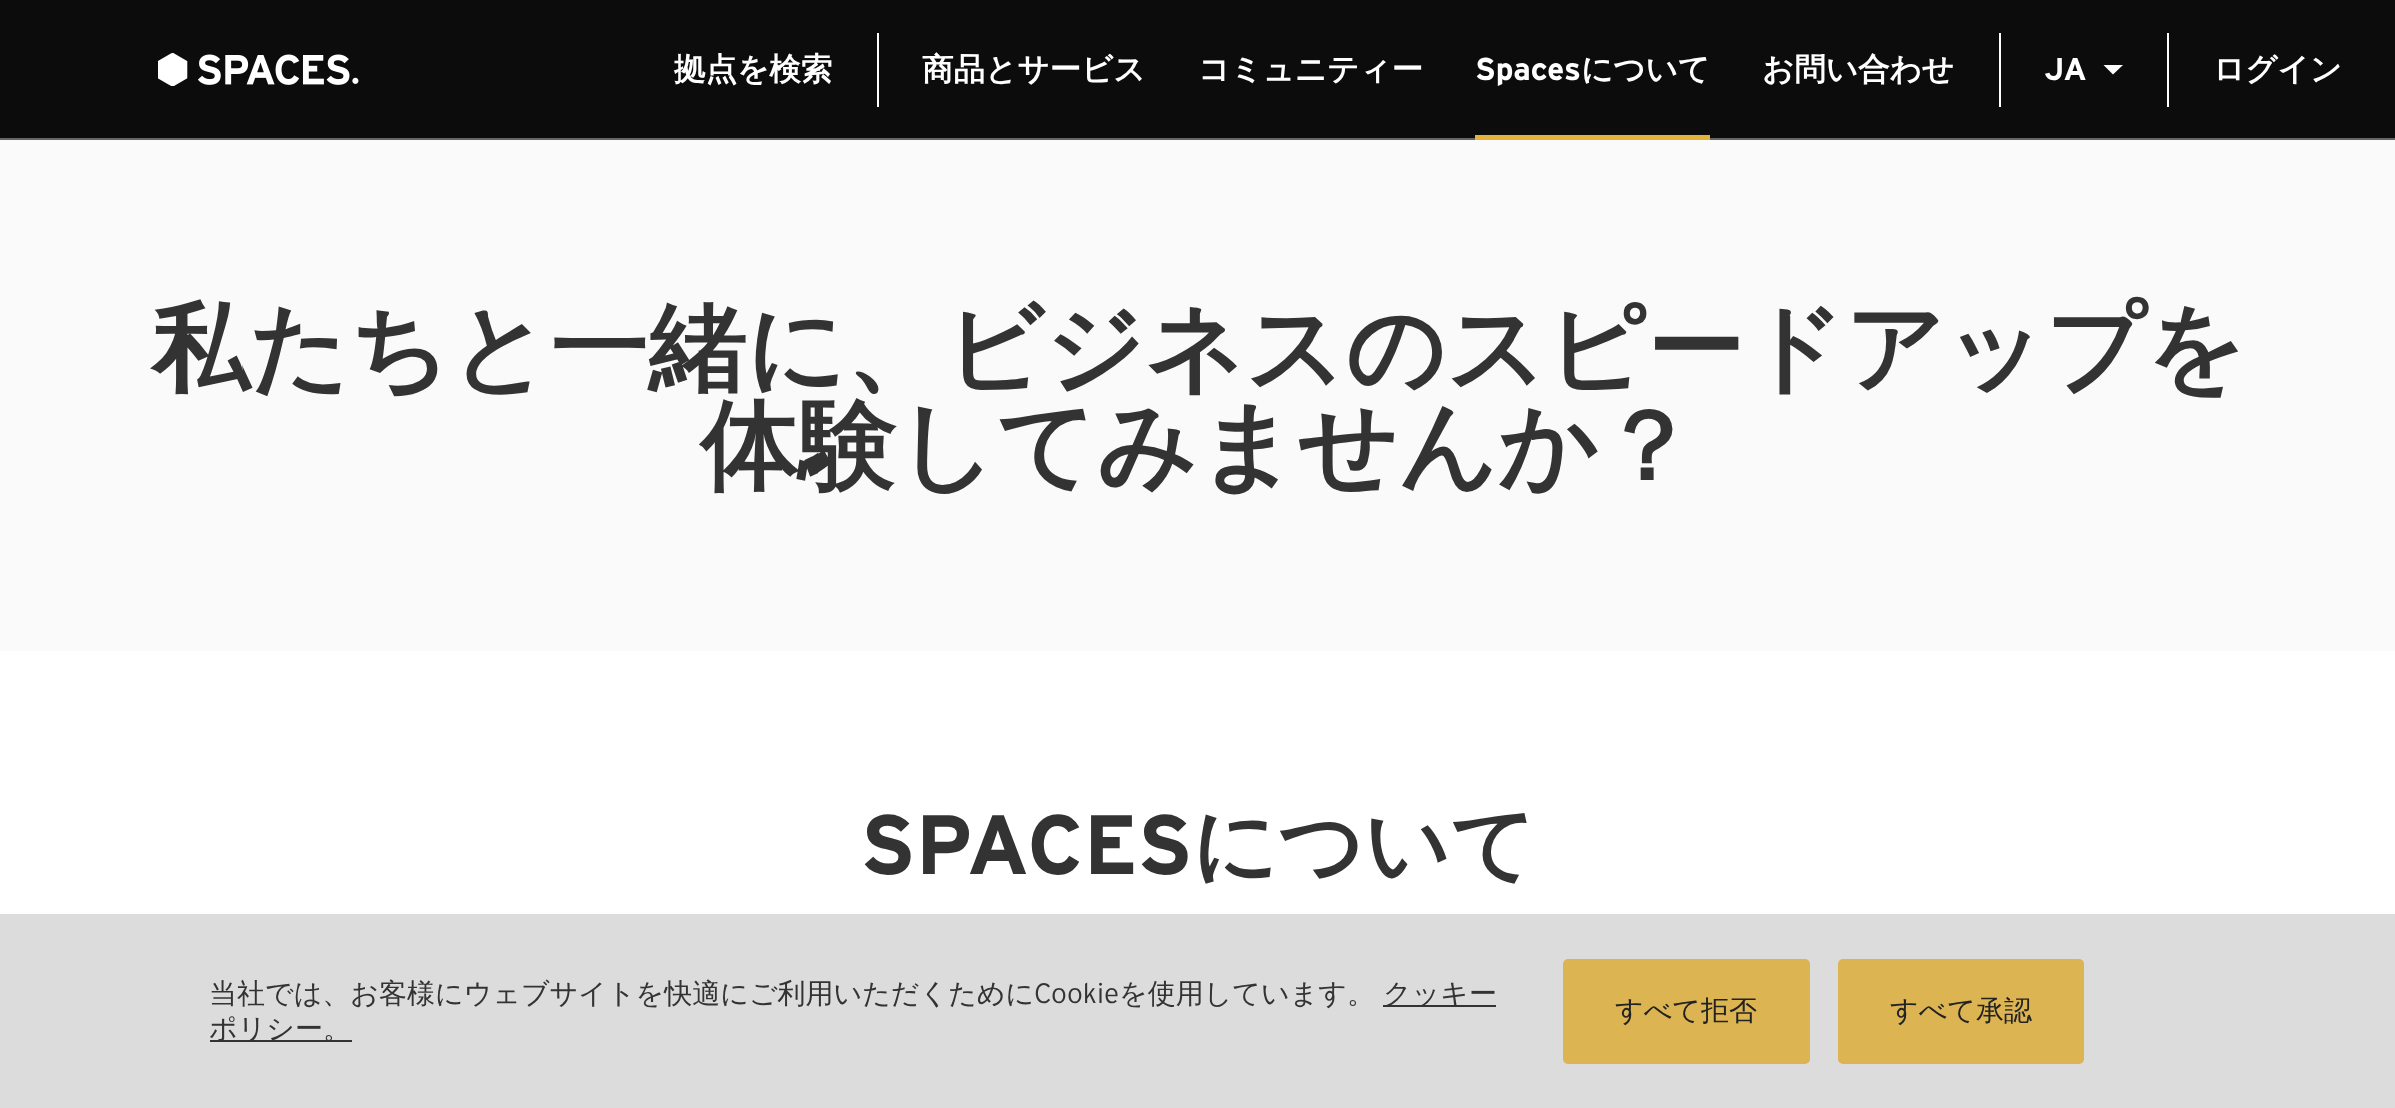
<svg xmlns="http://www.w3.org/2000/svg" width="2395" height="1108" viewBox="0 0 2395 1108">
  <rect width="100%" height="100%" fill="#0c0c0c"/>
  <rect x="0" y="138" width="2395" height="2" fill="#666666"/>
  <image x="158" y="53" width="201" height="33" href="img1.png"/>
  <text x="674" y="80" font-family="WenQuanYi Zen Hei" font-size="31.5" font-weight="bold" fill="#ffffff">拠点を検索</text>
  <rect x="877" y="33" width="2" height="74" fill="#ffffff"/>
  <text x="922" y="80" font-family="WenQuanYi Zen Hei" font-size="31.5" font-weight="bold" fill="#ffffff">商品とサービス</text>
  <text x="1198" y="80" font-family="WenQuanYi Zen Hei" font-size="31.5" font-weight="bold" fill="#ffffff">コミュニティー</text>
  <text x="1475" y="80" font-family="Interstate" font-size="31.5" font-weight="bold" fill="#ffffff">Spaces</text>
  <text x="1581" y="80" font-family="WenQuanYi Zen Hei" font-size="31.5" font-weight="bold" fill="#ffffff">について</text>
  <rect x="1475" y="135" width="235" height="5" fill="#e4b23a"/>
  <text x="1762" y="80" font-family="WenQuanYi Zen Hei" font-size="31.5" font-weight="bold" fill="#ffffff">お問い合わせ</text>
  <rect x="1999" y="33" width="2" height="74" fill="#ffffff"/>
  <text x="2044" y="80" font-family="Interstate" font-size="31.5" font-weight="bold" fill="#ffffff">JA</text>
  <path d="M2103.5 65H2123L2113 74.5Z" fill="#ffffff"/>
  <rect x="2167" y="33" width="2" height="74" fill="#ffffff"/>
  <text x="2213" y="80" font-family="WenQuanYi Zen Hei" font-size="31.5" font-weight="bold" fill="#ffffff">ログイン</text>
  <rect x="0" y="651" width="2395" height="263" fill="#ffffff"/>
  <rect x="0" y="140" width="2395" height="511" fill="#fafafa"/>
  <text x="151" y="382" font-family="WenQuanYi Zen Hei" font-size="98" font-weight="bold" fill="#333333">私たちと一緒に、ビジネスのスピードアップを</text>
  <text x="700" y="480" font-family="WenQuanYi Zen Hei" font-size="98" font-weight="bold" fill="#333333">体験してみませんか？</text>
  <text x="860" y="874" font-family="Interstate" font-size="84" font-weight="bold" fill="#333333">SPACES</text>
  <text x="1192" y="874" font-family="WenQuanYi Zen Hei" font-size="84" font-weight="bold" fill="#333333">について</text>
  <rect x="0" y="914" width="2395" height="194" fill="#dcdcdc"/>
  <text x="209" y="1003" font-family="WenQuanYi Zen Hei" font-size="28" font-weight="500" fill="#333333">当社では、お客様にウェブサイトを快適にご利用いただくために</text>
  <text x="1034" y="1003" font-family="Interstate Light" font-size="28" font-weight="300" fill="#333333">Cookie</text>
  <text x="1119" y="1003" font-family="WenQuanYi Zen Hei" font-size="28" font-weight="500" fill="#333333">を使用しています。</text>
  <rect x="1383" y="1005" width="113" height="2" fill="#333333"/>
  <text x="1383" y="1003" font-family="WenQuanYi Zen Hei" font-size="28" font-weight="500" fill="#333333">クッキー</text>
  <rect x="210" y="1040" width="142" height="2" fill="#333333"/>
  <text x="209" y="1038" font-family="WenQuanYi Zen Hei" font-size="28" font-weight="500" fill="#333333">ポリシー。</text>
  <rect x="1563" y="959" width="247" height="105" rx="5" fill="#dcb452"/>
  <text x="1615" y="1020" font-family="WenQuanYi Zen Hei" font-size="28" font-weight="500" fill="#222222">すべて拒否</text>
  <rect x="1838" y="959" width="246" height="105" rx="5" fill="#dcb452"/>
  <text x="1890" y="1020" font-family="WenQuanYi Zen Hei" font-size="28" font-weight="500" fill="#222222">すべて承認</text>
</svg>
